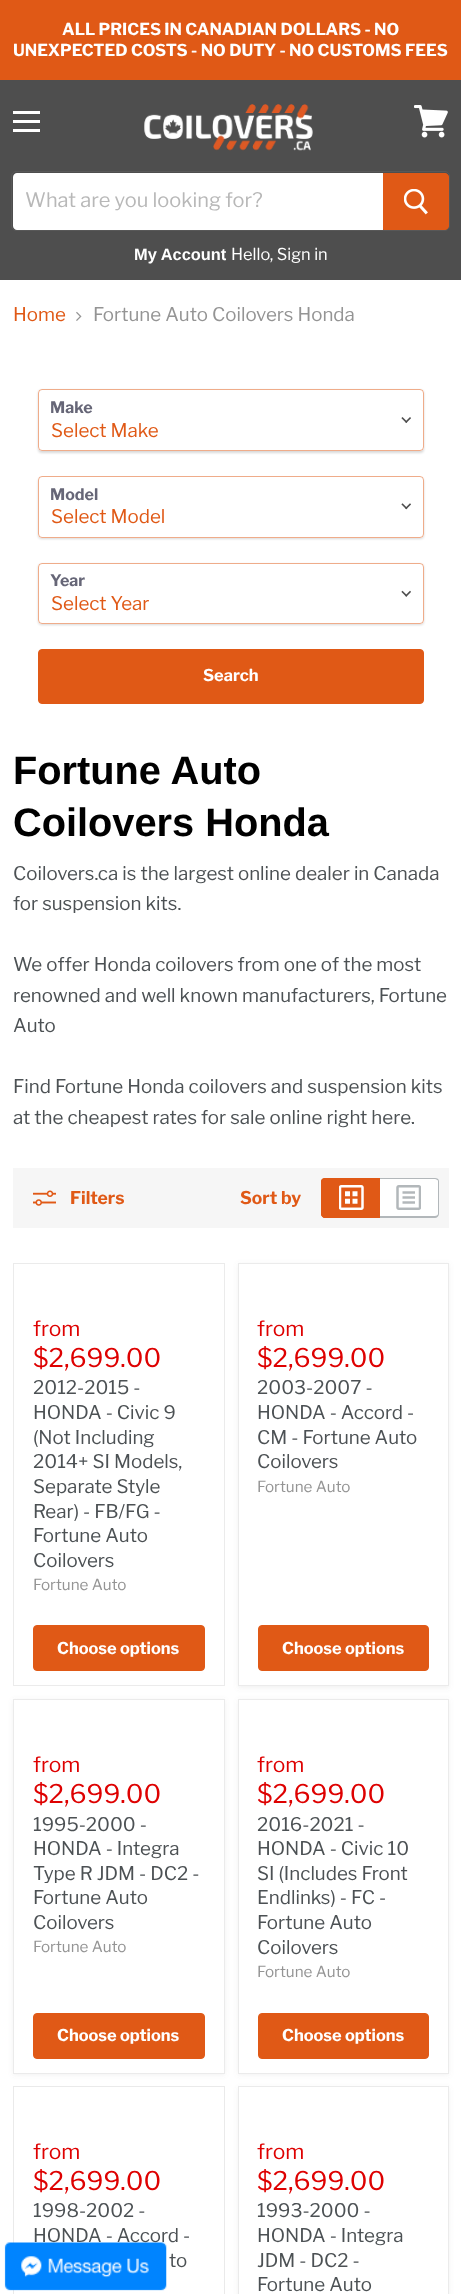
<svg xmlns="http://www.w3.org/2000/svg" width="461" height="2294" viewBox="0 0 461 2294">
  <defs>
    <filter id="blur1" x="-50%" y="-200%" width="200%" height="500%"><feGaussianBlur stdDeviation="1"/></filter>
    <filter id="blur2" x="-50%" y="-200%" width="200%" height="500%"><feGaussianBlur stdDeviation="2.5"/></filter>
  </defs>
  <rect width="100%" height="100%" fill="#ffffff"/>
  <rect x="0" y="0" width="461" height="80" fill="#e05916"/>
  <text x="62" y="35" font-family="Libre Franklin" font-size="16.4" font-weight="bold" fill="#ffffff">ALL PRICES IN CANADIAN DOLLARS - NO</text>
  <text x="13" y="56" font-family="Libre Franklin" font-size="16.4" font-weight="bold" fill="#ffffff">UNEXPECTED COSTS - NO DUTY - NO CUSTOMS FEES</text>
  <rect x="0" y="80" width="461" height="200" fill="#4e4e4e"/>
  <rect x="13" y="111" width="27" height="3" fill="#ffffff"/>
  <rect x="13" y="120" width="27" height="3" fill="#ffffff"/>
  <rect x="13" y="129" width="27" height="3" fill="#ffffff"/>
  <image x="414" y="105" width="34" height="33" href="img1.png"/>
  <image x="144" y="104" width="169" height="47" href="img2.png"/>
  <rect x="11.5" y="171.5" width="438" height="59" rx="4.5" fill="none" stroke="#585858"/>
  <path d="M17 173H383V230H17C15 230 13 228 13 226V177C13 175 15 173 17 173Z" fill="#ffffff"/>
  <text x="25" y="207" font-family="Libre Franklin" font-size="20" fill="#b8b8b8">What are you looking for?</text>
  <path d="M383.5 173.5H445C447 173.5 448.5 175 448.5 177V226C448.5 228 447 229.5 445 229.5H383.5Z" fill="#e05916" stroke="#e05916"/>
  <image x="404" y="189" width="24" height="26" href="img3.png"/>
  <text x="134" y="260" font-family="Arimo" font-size="16.4" font-weight="bold" fill="#ffffff">My Account</text>
  <text x="231" y="260" font-family="Libre Franklin" font-size="16.4" fill="#ffffff">Hello, Sign in</text>
  <text x="13" y="321" font-family="Libre Franklin" font-size="18.75" fill="#e05916">Home</text>
  <image x="76" y="311" width="6" height="10" href="img4.png"/>
  <text x="93" y="321" font-family="Libre Franklin" font-size="18.75" fill="#949494">Fortune Auto Coilovers Honda</text>
  <rect x="38" y="390" width="386" height="63" rx="4" fill="#000000" fill-opacity="0.15" filter="url(#blur1)"/>
  <rect x="38" y="389" width="386" height="62" rx="4" fill="#ffffff"/>
  <rect x="38.5" y="389.5" width="385" height="61" rx="3.5" fill="none" stroke="#e05916" stroke-opacity="0.5"/>
  <text x="50" y="413" font-family="Libre Franklin" font-size="16" font-weight="bold" fill="#666677">Make</text>
  <image x="401" y="417" width="10" height="6" href="img5.png"/>
  <text x="51" y="437" font-family="Libre Franklin" font-size="18.75" fill="#e05916">Select Make</text>
  <rect x="38" y="478" width="386" height="61" rx="4" fill="#000000" fill-opacity="0.15" filter="url(#blur1)"/>
  <rect x="38" y="476" width="386" height="62" rx="4" fill="#ffffff"/>
  <rect x="38.5" y="476.5" width="385" height="61" rx="3.5" fill="none" stroke="#e05916" stroke-opacity="0.5"/>
  <text x="50" y="500" font-family="Libre Franklin" font-size="16" font-weight="bold" fill="#666677">Model</text>
  <image x="401" y="503" width="10" height="7" href="img6.png"/>
  <text x="51" y="523" font-family="Libre Franklin" font-size="18.75" fill="#e05916">Select Model</text>
  <rect x="38" y="564" width="386" height="61" rx="4" fill="#000000" fill-opacity="0.15" filter="url(#blur1)"/>
  <rect x="38" y="563" width="386" height="61" rx="4" fill="#ffffff"/>
  <rect x="38.5" y="563.5" width="385" height="60" rx="3.5" fill="none" stroke="#e05916" stroke-opacity="0.5"/>
  <text x="50" y="586" font-family="Libre Franklin" font-size="16" font-weight="bold" fill="#666677">Year</text>
  <image x="401" y="590" width="10" height="7" href="img7.png"/>
  <text x="51" y="610" font-family="Libre Franklin" font-size="18.75" fill="#e05916">Select Year</text>
  <rect x="38.5" y="649.5" width="385" height="54" rx="3.5" fill="#e05916" stroke="#e05916"/>
  <text x="203" y="681" font-family="Libre Franklin" font-size="16.4" font-weight="bold" fill="#ffffff">Search</text>
  <text x="13" y="784" font-family="Arimo" font-size="39.75" font-weight="bold" fill="#000000">Fortune Auto</text>
  <text x="13" y="836" font-family="Arimo" font-size="39.75" font-weight="bold" fill="#000000">Coilovers Honda</text>
  <text x="13" y="880" font-family="Libre Franklin" font-size="18.75" fill="#4c5154">Coilovers.ca is the largest online dealer in Canada</text>
  <text x="13" y="910" font-family="Libre Franklin" font-size="18.75" fill="#4c5154">for suspension kits.</text>
  <text x="13" y="971" font-family="Libre Franklin" font-size="18.75" fill="#4c5154">We offer Honda coilovers from one of the most</text>
  <text x="13" y="1002" font-family="Libre Franklin" font-size="18.75" fill="#4c5154">renowned and well known manufacturers, Fortune</text>
  <text x="13" y="1032" font-family="Libre Franklin" font-size="18.75" fill="#4c5154">Auto</text>
  <text x="13" y="1093" font-family="Libre Franklin" font-size="18.75" fill="#4c5154">Find Fortune Honda coilovers and suspension kits</text>
  <text x="13" y="1124" font-family="Libre Franklin" font-size="18.75" fill="#4c5154">at the cheapest rates for sale online right here.</text>
  <rect x="13" y="1168" width="436" height="60" fill="#f6f6f6"/>
  <image x="33" y="1190" width="23" height="16" href="img8.png"/>
  <text x="70" y="1204" font-family="Libre Franklin" font-size="17.5" font-weight="bold" fill="#e05916">Filters</text>
  <text x="240" y="1204" font-family="Libre Franklin" font-size="17.5" font-weight="bold" fill="#e05916">Sort by</text>
  <path d="M325 1178H380V1218H325C323 1218 321 1216 321 1214V1182C321 1180 323 1178 325 1178Z" fill="#e05916"/>
  <path d="M325 1178H380V1218H325C323 1218 321 1216 321 1214V1181C321 1179 323 1178 325 1178ZM325 1179H380V1216H325C324 1216 322 1215 322 1214V1181C322 1180 324 1179 325 1179Z" fill="#e05916" fill-rule="evenodd"/>
  <image x="339" y="1185" width="25" height="25" href="img9.png"/>
  <path d="M380 1178H435C437 1178 439 1180 439 1182V1214C439 1216 437 1218 435 1218H380Z" fill="#ffffff"/>
  <path d="M380 1178H435C437 1178 439 1179 439 1181V1214C439 1216 437 1218 435 1218H380ZM380 1179H435C436 1179 438 1180 438 1181V1214C438 1215 436 1216 435 1216H380Z" fill="#b2b7ba" fill-rule="evenodd"/>
  <image x="396" y="1185" width="25" height="25" href="img10.png"/>
  <rect x="13.5" y="1263.5" width="211" height="422" fill="none" stroke="#ebebeb"/>
  <text x="33" y="1336" font-family="Libre Franklin" font-size="21" fill="#de0101">from</text>
  <text x="33" y="1367" font-family="Libre Franklin" font-size="25.75" fill="#de0101">$2,699.00</text>
  <text x="33" y="1394" font-family="Libre Franklin" font-size="18.75" fill="#4c5154">2012-2015 -</text>
  <text x="33" y="1419" font-family="Libre Franklin" font-size="18.75" fill="#4c5154">HONDA - Civic 9</text>
  <text x="33" y="1444" font-family="Libre Franklin" font-size="18.75" fill="#4c5154">(Not Including</text>
  <text x="33" y="1468" font-family="Libre Franklin" font-size="18.75" fill="#4c5154">2014+ SI Models,</text>
  <text x="33" y="1493" font-family="Libre Franklin" font-size="18.75" fill="#4c5154">Separate Style</text>
  <text x="33" y="1518" font-family="Libre Franklin" font-size="18.75" fill="#4c5154">Rear) - FB/FG -</text>
  <text x="33" y="1542" font-family="Libre Franklin" font-size="18.75" fill="#4c5154">Fortune Auto</text>
  <text x="33" y="1567" font-family="Libre Franklin" font-size="18.75" fill="#4c5154">Coilovers</text>
  <text x="33" y="1590" font-family="Libre Franklin" font-size="15.25" fill="#949494">Fortune Auto</text>
  <rect x="33.5" y="1625.5" width="171" height="45" rx="3.5" fill="#e05916" stroke="#e05916"/>
  <text x="57" y="1654" font-family="Libre Franklin" font-size="16.4" font-weight="bold" fill="#ffffff">Choose options</text>
  <rect x="238" y="1264" width="211" height="424" fill="#7f7f7f" fill-opacity="0.11" filter="url(#blur2)"/>
  <rect x="238.5" y="1263.5" width="210" height="422" fill="#ffffff" stroke="#ebebeb"/>
  <text x="257" y="1336" font-family="Libre Franklin" font-size="21" fill="#de0101">from</text>
  <text x="257" y="1367" font-family="Libre Franklin" font-size="25.75" fill="#de0101">$2,699.00</text>
  <text x="257" y="1394" font-family="Libre Franklin" font-size="18.75" fill="#4c5154">2003-2007 -</text>
  <text x="257" y="1419" font-family="Libre Franklin" font-size="18.75" fill="#4c5154">HONDA - Accord -</text>
  <text x="257" y="1444" font-family="Libre Franklin" font-size="18.75" fill="#4c5154">CM - Fortune Auto</text>
  <text x="257" y="1468" font-family="Libre Franklin" font-size="18.75" fill="#4c5154">Coilovers</text>
  <text x="257" y="1492" font-family="Libre Franklin" font-size="15.25" fill="#949494">Fortune Auto</text>
  <rect x="258.5" y="1625.5" width="170" height="45" rx="3.5" fill="#e05916" stroke="#e05916"/>
  <text x="282" y="1654" font-family="Libre Franklin" font-size="16.4" font-weight="bold" fill="#ffffff">Choose options</text>
  <rect x="13" y="1700" width="212" height="375" fill="#7f7f7f" fill-opacity="0.11" filter="url(#blur2)"/>
  <rect x="13.5" y="1699.5" width="211" height="374" fill="#ffffff" stroke="#ebebeb"/>
  <text x="33" y="1772" font-family="Libre Franklin" font-size="21" fill="#de0101">from</text>
  <text x="33" y="1803" font-family="Libre Franklin" font-size="25.75" fill="#de0101">$2,699.00</text>
  <text x="33" y="1831" font-family="Libre Franklin" font-size="18.75" fill="#4c5154">1995-2000 -</text>
  <text x="33" y="1855" font-family="Libre Franklin" font-size="18.75" fill="#4c5154">HONDA - Integra</text>
  <text x="33" y="1880" font-family="Libre Franklin" font-size="18.75" fill="#4c5154">Type R JDM - DC2 -</text>
  <text x="33" y="1904" font-family="Libre Franklin" font-size="18.75" fill="#4c5154">Fortune Auto</text>
  <text x="33" y="1929" font-family="Libre Franklin" font-size="18.75" fill="#4c5154">Coilovers</text>
  <text x="33" y="1952" font-family="Libre Franklin" font-size="15.25" fill="#949494">Fortune Auto</text>
  <rect x="33.5" y="2013.5" width="171" height="45" rx="3.5" fill="#e05916" stroke="#e05916"/>
  <text x="57" y="2041" font-family="Libre Franklin" font-size="16.4" font-weight="bold" fill="#ffffff">Choose options</text>
  <rect x="238" y="1700" width="211" height="375" fill="#7f7f7f" fill-opacity="0.11" filter="url(#blur2)"/>
  <rect x="238.5" y="1699.5" width="210" height="374" fill="#ffffff" stroke="#ebebeb"/>
  <text x="257" y="1772" font-family="Libre Franklin" font-size="21" fill="#de0101">from</text>
  <text x="257" y="1803" font-family="Libre Franklin" font-size="25.75" fill="#de0101">$2,699.00</text>
  <text x="257" y="1831" font-family="Libre Franklin" font-size="18.75" fill="#4c5154">2016-2021 -</text>
  <text x="257" y="1855" font-family="Libre Franklin" font-size="18.75" fill="#4c5154">HONDA - Civic 10</text>
  <text x="257" y="1880" font-family="Libre Franklin" font-size="18.75" fill="#4c5154">SI (Includes Front</text>
  <text x="257" y="1904" font-family="Libre Franklin" font-size="18.75" fill="#4c5154">Endlinks) - FC -</text>
  <text x="257" y="1929" font-family="Libre Franklin" font-size="18.75" fill="#4c5154">Fortune Auto</text>
  <text x="257" y="1954" font-family="Libre Franklin" font-size="18.75" fill="#4c5154">Coilovers</text>
  <text x="257" y="1977" font-family="Libre Franklin" font-size="15.25" fill="#949494">Fortune Auto</text>
  <rect x="258.5" y="2013.5" width="170" height="45" rx="3.5" fill="#e05916" stroke="#e05916"/>
  <text x="282" y="2041" font-family="Libre Franklin" font-size="16.4" font-weight="bold" fill="#ffffff">Choose options</text>
  <rect x="13.5" y="2086.5" width="211" height="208" fill="none" stroke="#eaeaea"/>
  <text x="33" y="2159" font-family="Libre Franklin" font-size="21" fill="#de0101">from</text>
  <text x="33" y="2190" font-family="Libre Franklin" font-size="25.75" fill="#de0101">$2,699.00</text>
  <text x="33" y="2217" font-family="Libre Franklin" font-size="18.75" fill="#4c5154">1998-2002 -</text>
  <text x="33" y="2242" font-family="Libre Franklin" font-size="18.75" fill="#4c5154">HONDA - Accord -</text>
  <text x="169" y="2267" font-family="Libre Franklin" font-size="18.75" fill="#4c5154">to</text>
  <rect x="238" y="2088" width="211" height="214" fill="#7f7f7f" fill-opacity="0.11" filter="url(#blur2)"/>
  <rect x="238.5" y="2086.5" width="210" height="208" fill="#ffffff" stroke="#ebebeb"/>
  <text x="257" y="2159" font-family="Libre Franklin" font-size="21" fill="#de0101">from</text>
  <text x="257" y="2190" font-family="Libre Franklin" font-size="25.75" fill="#de0101">$2,699.00</text>
  <text x="257" y="2217" font-family="Libre Franklin" font-size="18.75" fill="#4c5154">1993-2000 -</text>
  <text x="257" y="2242" font-family="Libre Franklin" font-size="18.75" fill="#4c5154">HONDA - Integra</text>
  <text x="257" y="2267" font-family="Libre Franklin" font-size="18.75" fill="#4c5154">JDM - DC2 -</text>
  <text x="257" y="2291" font-family="Libre Franklin" font-size="18.75" fill="#4c5154">Fortune Auto</text>
  <image x="4" y="2242" width="163" height="49" href="img11.png"/>
</svg>
